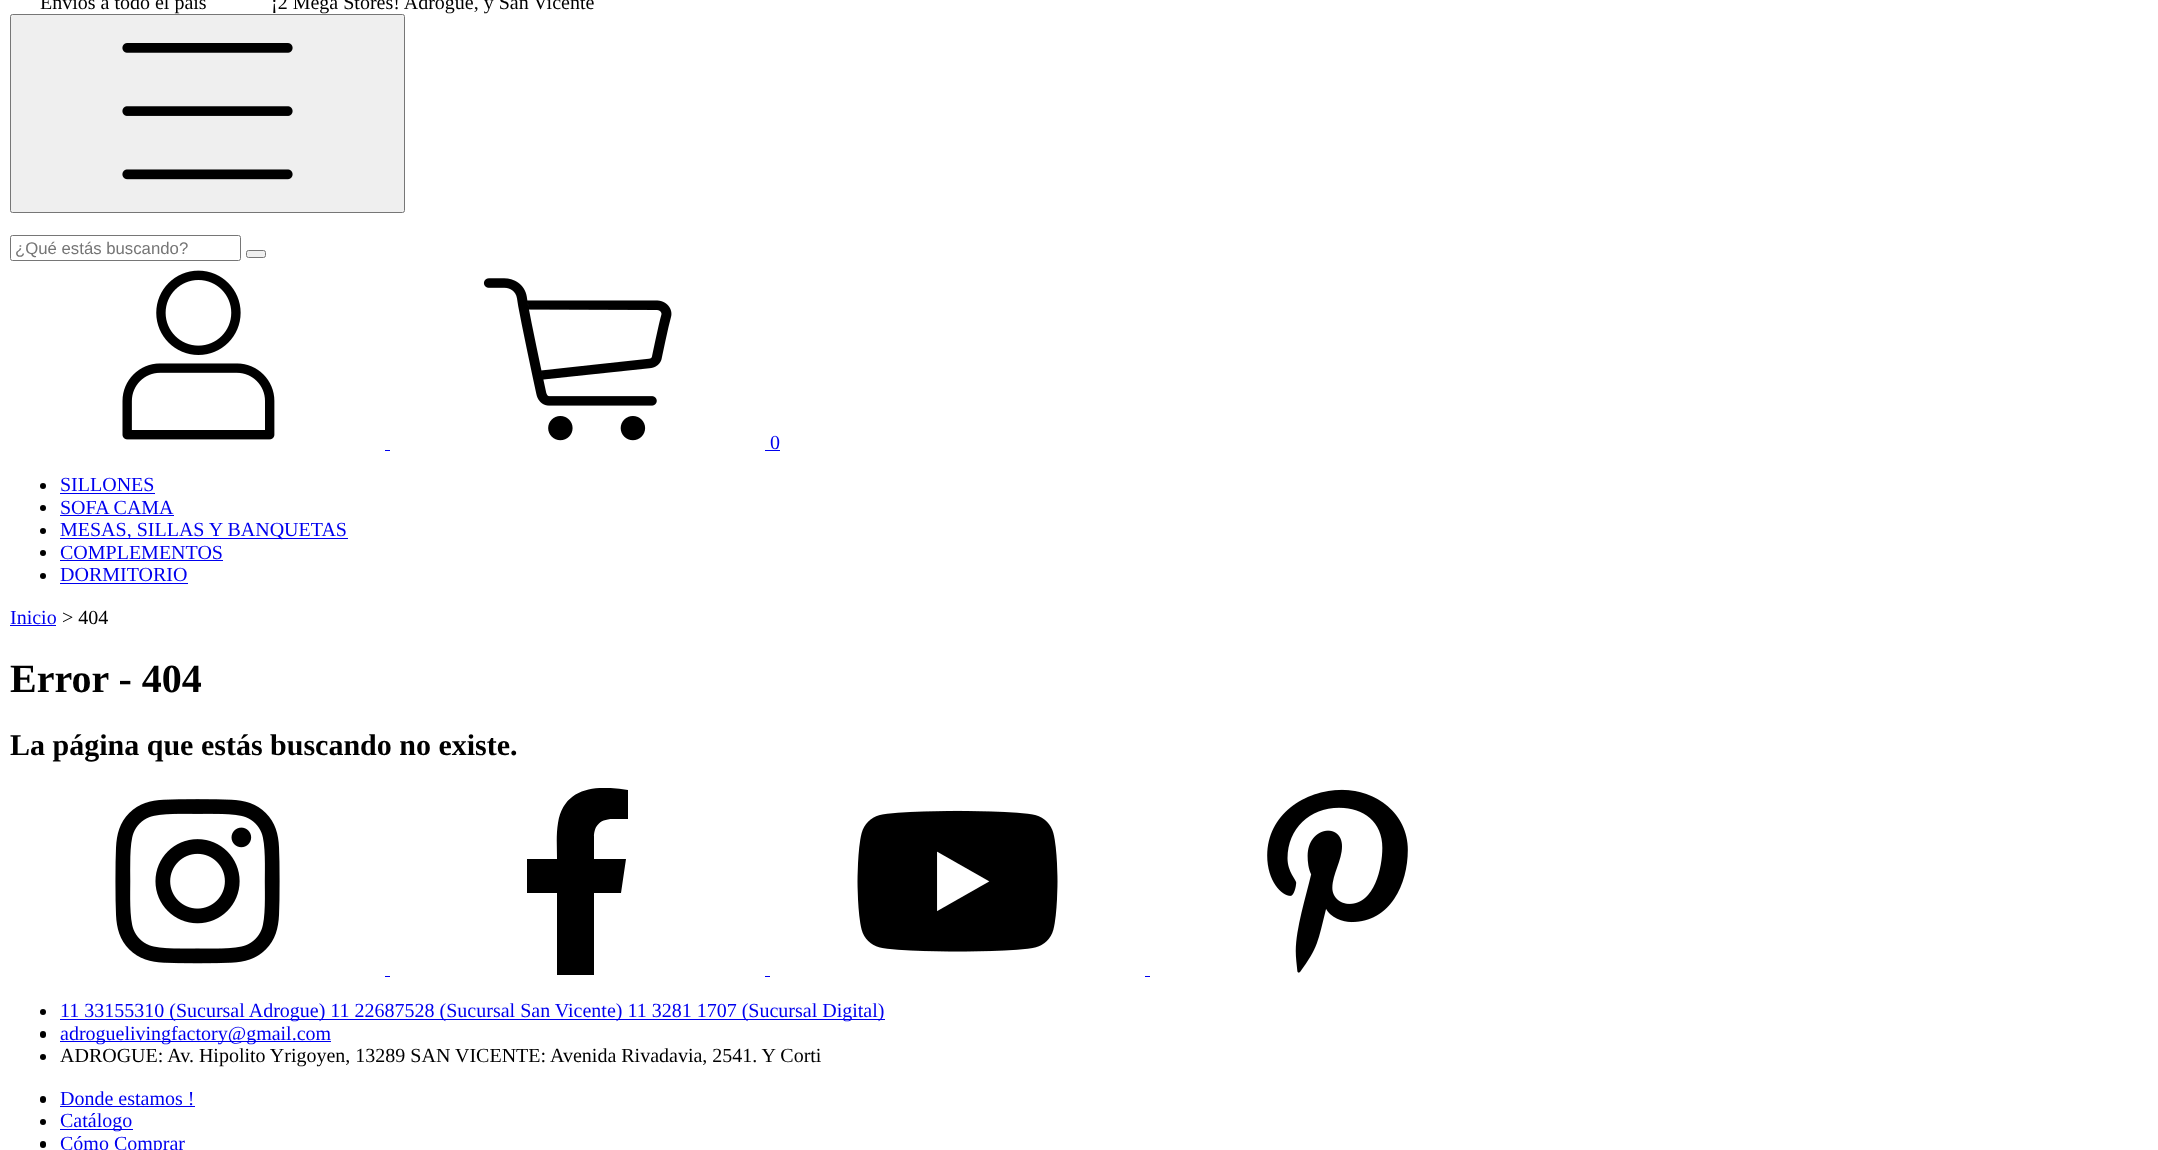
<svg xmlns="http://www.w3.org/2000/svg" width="2158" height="1150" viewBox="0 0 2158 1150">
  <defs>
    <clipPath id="clip1"><rect x="390" y="788" width="375" height="187"/></clipPath>
  </defs>
  <rect width="100%" height="100%" fill="#ffffff"/>
  <text x="40" y="9" font-family="Liberation Serif" font-size="20" fill="#000000">Envíos a todo el país</text>
  <text x="271" y="9" font-family="Liberation Serif" font-size="20" fill="#000000">¡2 Mega Stores! Adrogué, y San Vicente</text>
  <rect x="10.5" y="14.5" width="394" height="198" rx="2" fill="#efefef" stroke="#767676"/>
  <image x="122" y="43" width="171" height="137" href="img1.png"/>
  <rect x="10.5" y="235.5" width="230" height="25" rx="2" fill="none" stroke="#767676"/>
  <text x="15" y="254" font-family="Liberation Sans" font-size="16.75" fill="#757575">¿Qué estás buscando?</text>
  <rect x="246.5" y="250.5" width="19" height="7" rx="2" fill="#efefef" stroke="#767676"/>
  <image x="122" y="270" width="153" height="170" href="img2.png"/>
  <image x="483" y="278" width="189" height="163" href="img3.png"/>
  <text x="770" y="449" font-family="Liberation Serif" font-size="20" fill="#0000ee">0</text>
  <rect x="765" y="450" width="15" height="1" fill="#0000ee"/>
  <rect x="385" y="450" width="5" height="1" fill="#0000ee"/>
  <circle cx="43" cy="486" r="3" fill="#000000"/>
  <text x="60" y="491" font-family="Liberation Serif" font-size="20" fill="#0000ee">SILLONES</text>
  <rect x="60" y="493" width="95" height="1" fill="#0000ee"/>
  <circle cx="43" cy="508" r="3" fill="#000000"/>
  <text x="60" y="514" font-family="Liberation Serif" font-size="20" fill="#0000ee">SOFA CAMA</text>
  <rect x="60" y="515" width="114" height="1" fill="#0000ee"/>
  <circle cx="43" cy="531" r="3" fill="#000000"/>
  <rect x="60" y="538" width="288" height="1" fill="#0000ee"/>
  <text x="60" y="536" font-family="Liberation Serif" font-size="20" fill="#0000ee">MESAS, SILLAS Y BANQUETAS</text>
  <circle cx="43" cy="553" r="3" fill="#000000"/>
  <text x="60" y="559" font-family="Liberation Serif" font-size="20" fill="#0000ee">COMPLEMENTOS</text>
  <rect x="60" y="560" width="163" height="1" fill="#0000ee"/>
  <circle cx="43" cy="576" r="3" fill="#000000"/>
  <text x="60" y="581" font-family="Liberation Serif" font-size="20" fill="#0000ee">DORMITORIO</text>
  <rect x="60" y="583" width="128" height="1" fill="#0000ee"/>
  <text x="10" y="624" font-family="Liberation Serif" font-size="20" fill="#0000ee">Inicio</text>
  <rect x="10" y="625" width="46" height="1" fill="#0000ee"/>
  <text x="62" y="624" font-family="Liberation Serif" font-size="20" fill="#000000">&gt; 404</text>
  <text x="10" y="692" font-family="Liberation Serif" font-size="40" font-weight="bold" fill="#000000">Error - 404</text>
  <text x="10" y="755" font-family="Liberation Serif" font-size="30" font-weight="bold" fill="#000000">La página que estás buscando no existe.</text>
  <image x="115" y="799" width="165" height="165" href="img4.png"/>
  <g clip-path="url(#clip1)">
    <path d="M621 893L626 859H594V837C594 828 598 819 613 819H628V790C598 785 564 786 558 823C556 835 557 847 557 859H527V893H557V975H594V893Z" fill="#000000"/>
  </g>
  <image x="857" y="810" width="201" height="142" href="img5.png"/>
  <image x="1267" y="789" width="141" height="184" href="img6.png"/>
  <rect x="385" y="976" width="5" height="1" fill="#0000ee"/>
  <rect x="765" y="976" width="5" height="1" fill="#0000ee"/>
  <rect x="1145" y="976" width="5" height="1" fill="#0000ee"/>
  <circle cx="43" cy="1012" r="3" fill="#000000"/>
  <rect x="60" y="1019" width="825" height="1" fill="#0000ee"/>
  <text x="60" y="1017" font-family="Liberation Serif" font-size="20" fill="#0000ee">11 33155310 (Sucursal Adrogue) 11 22687528 (Sucursal San Vicente) 11 3281 1707 (Sucursal Digital)</text>
  <rect x="40" y="1031" width="6" height="7" rx="3" fill="#000000"/>
  <rect x="60" y="1041" width="271" height="1" fill="#0000ee"/>
  <text x="60" y="1040" font-family="Liberation Serif" font-size="20" fill="#0000ee">adroguelivingfactory@gmail.com</text>
  <circle cx="43" cy="1057" r="3" fill="#000000"/>
  <text x="60" y="1062" font-family="Liberation Serif" font-size="20" fill="#000000">ADROGUE: Av. Hipolito Yrigoyen, 13289 SAN VICENTE: Avenida Rivadavia, 2541. Y Corti</text>
  <rect x="40" y="1096" width="6" height="7" rx="3" fill="#000000"/>
  <text x="60" y="1105" font-family="Liberation Serif" font-size="20" fill="#0000ee">Donde estamos !</text>
  <rect x="60" y="1106" width="135" height="1" fill="#0000ee"/>
  <circle cx="43" cy="1122" r="3" fill="#000000"/>
  <rect x="60" y="1129" width="73" height="1" fill="#0000ee"/>
  <text x="60" y="1127" font-family="Liberation Serif" font-size="20" fill="#0000ee">Catálogo</text>
  <rect x="40" y="1141" width="6" height="7" rx="3" fill="#000000"/>
  <text x="60" y="1150" font-family="Liberation Serif" font-size="20" fill="#0000ee">Cómo Comprar</text>
</svg>
